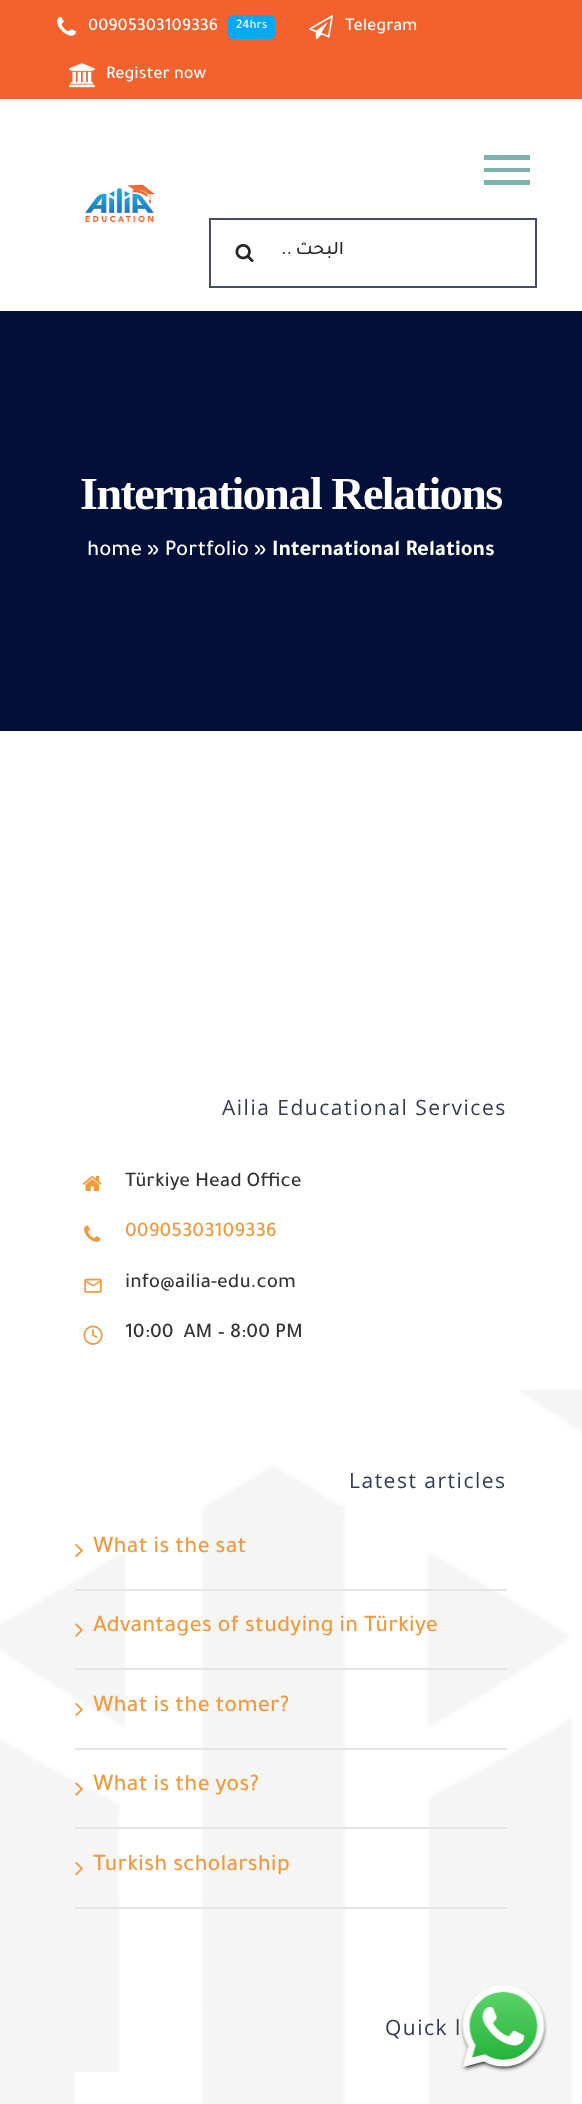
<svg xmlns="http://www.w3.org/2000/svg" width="582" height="2104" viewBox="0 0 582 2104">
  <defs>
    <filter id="blur1" x="-50%" y="-200%" width="200%" height="500%"><feGaussianBlur stdDeviation="4"/></filter>
    <clipPath id="clip1"><rect x="281" y="242" width="213" height="24"/></clipPath>
  </defs>
  <rect width="100%" height="100%" fill="#ffffff"/>
  <rect x="0" y="0" width="582" height="99" fill="#f3622c"/>
  <image x="57" y="16" width="19" height="20" href="img1.png"/>
  <text x="88" y="30" font-family="Tajawal" font-size="18" font-weight="500" fill="#ffffff">00905303109336</text>
  <rect x="228" y="15" width="47" height="24" rx="5" fill="#03a9f4"/>
  <text x="236" y="28" font-family="Tajawal" font-size="13" font-weight="500" fill="#ffffff">24hrs</text>
  <image x="309" y="15" width="24" height="25" href="img2.png"/>
  <text x="345" y="30" font-family="Tajawal" font-size="18" font-weight="500" fill="#ffffff">Telegram</text>
  <image x="69" y="63" width="26" height="25" href="img3.png"/>
  <text x="106" y="78" font-family="Tajawal" font-size="18" font-weight="500" fill="#ffffff">Register now</text>
  <rect x="0" y="311" width="582" height="420" fill="#020f38"/>
  <rect x="0" y="102" width="582" height="212" fill="#50351f" fill-opacity="0.05" filter="url(#blur1)"/>
  <rect x="0" y="99" width="582" height="212" fill="#ffffff"/>
  <image x="84" y="184" width="71" height="39" href="img4.png"/>
  <path d="M484 155H530V160H484ZM484 172V168H530V172ZM484 185V180H530V185Z" fill="#7bb3af"/>
  <rect x="210" y="219" width="326" height="68" fill="none" stroke="#444d62" stroke-width="2"/>
  <image x="235" y="244" width="19" height="19" href="img5.png"/>
  <g clip-path="url(#clip1)">
    <text x="344" y="254" word-spacing="-1" font-family="Tajawal" font-size="19.5" font-weight="500" direction="rtl" fill="#262626">البحث ..</text>
  </g>
  <text x="80" y="509" font-family="Liberation Serif" font-size="46" font-weight="bold" letter-spacing="-1.5" fill="#ffffff">International Relations</text>
  <text x="87" y="555" font-family="Tajawal" font-size="22.5" font-weight="500" fill="#ffffff">home » Portfolio »</text>
  <text x="272" y="555" font-family="Tajawal" font-size="22.5" font-weight="bold" fill="#ffffff">International Relations</text>
  <image x="0" y="1388" width="582" height="716" href="img6.png"/>
  <text x="222" y="1115" font-family="Open Sans" font-size="21" letter-spacing="1.5" fill="#333c4e">Ailia Educational Services</text>
  <image x="82" y="1176" width="20" height="15" href="img7.png"/>
  <text x="125" y="1186" font-family="Tajawal" font-size="21" font-weight="500" fill="#333333">Türkiye Head Office</text>
  <image x="84" y="1225" width="17" height="17" href="img8.png"/>
  <text x="125" y="1236" font-family="Tajawal" font-size="21" font-weight="500" fill="#ef9a3d">00905303109336</text>
  <image x="84" y="1278" width="18" height="15" href="img9.png"/>
  <text x="125" y="1287" font-family="Tajawal" font-size="21" font-weight="500" fill="#333333">info@ailia-edu.com</text>
  <image x="83" y="1325" width="20" height="20" href="img10.png"/>
  <text x="125" y="1337" font-family="Tajawal" font-size="21" font-weight="500" fill="#333333" xml:space="preserve">10:00  AM – 8:00 PM</text>
  <text x="349" y="1488" font-family="Open Sans" font-size="21" letter-spacing="1.5" fill="#333c4e">Latest articles</text>
  <rect x="75" y="1589" width="432" height="2" fill="#e7e4e2"/>
  <image x="75" y="1543" width="8" height="15" href="img11.png"/>
  <text x="93" y="1552" font-family="Tajawal" font-size="24" font-weight="500" fill="#ef9a3d">What is the sat</text>
  <rect x="75" y="1668" width="432" height="2" fill="#e7e4e2"/>
  <image x="75" y="1623" width="8" height="14" href="img12.png"/>
  <text x="93" y="1631" font-family="Tajawal" font-size="24" font-weight="500" fill="#ef9a3d">Advantages of studying in Türkiye</text>
  <rect x="75" y="1748" width="432" height="2" fill="#e7e4e2"/>
  <image x="75" y="1702" width="8" height="15" href="img13.png"/>
  <text x="93" y="1711" font-family="Tajawal" font-size="24" font-weight="500" fill="#ef9a3d">What is the tomer?</text>
  <rect x="75" y="1827" width="432" height="2" fill="#e7e4e2"/>
  <image x="75" y="1782" width="8" height="14" href="img14.png"/>
  <text x="93" y="1790" font-family="Tajawal" font-size="24" font-weight="500" fill="#ef9a3d">What is the yos?</text>
  <rect x="75" y="1907" width="432" height="2" fill="#e7e4e2"/>
  <image x="75" y="1861" width="8" height="15" href="img15.png"/>
  <text x="93" y="1870" font-family="Tajawal" font-size="24" font-weight="500" fill="#ef9a3d">Turkish scholarship</text>
  <text x="385" y="2035" font-family="Open Sans" font-size="21" letter-spacing="1.5" fill="#333c4e">Quick l</text>
  <rect x="75" y="2072" width="45" height="32" fill="#ffffff"/>
  <image x="460" y="1985" width="87" height="87" href="img16.png"/>
</svg>
